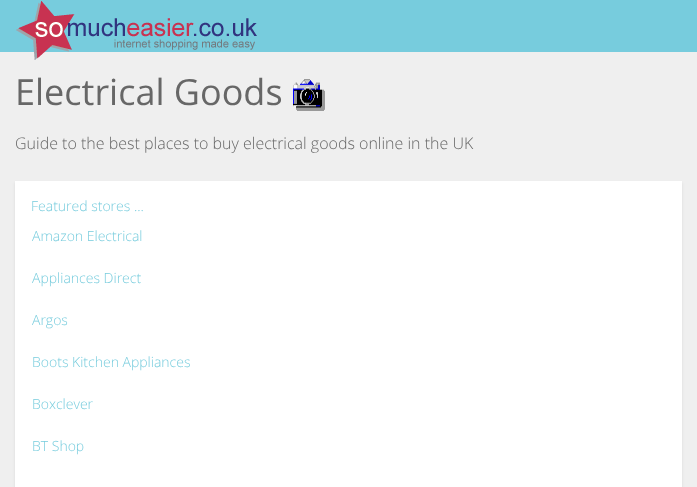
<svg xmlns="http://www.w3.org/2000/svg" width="697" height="487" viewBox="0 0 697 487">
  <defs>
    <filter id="blur1" x="-50%" y="-200%" width="200%" height="500%"><feGaussianBlur stdDeviation="1.5"/></filter>
  </defs>
  <rect width="100%" height="100%" fill="#efefef"/>
  <rect x="0" y="0" width="697" height="52" fill="#77ccdd"/>
  <image x="16" y="1" width="241" height="59" href="img1.png"/>
  <text x="15" y="105" font-family="Open Sans" font-size="36" fill="#676767">Electrical Goods</text>
  <image x="293" y="79" width="32" height="32" href="img2.png"/>
  <text x="15" y="149" font-family="Open Sans" font-size="16" font-weight="300" fill="#676767">Guide to the best places to buy electrical goods online in the UK</text>
  <rect x="15" y="183" width="667" height="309" fill="#000000" fill-opacity="0.09" filter="url(#blur1)"/>
  <rect x="15" y="181" width="667" height="306" fill="#ffffff"/>
  <text x="31" y="211" font-family="Open Sans" font-size="14" font-weight="300" fill="#77ccdd">Featured stores ...</text>
  <text x="32" y="241" font-family="Open Sans" font-size="14" font-weight="300" fill="#77ccdd">Amazon Electrical</text>
  <text x="32" y="283" font-family="Open Sans" font-size="14" font-weight="300" fill="#77ccdd">Appliances Direct</text>
  <text x="32" y="325" font-family="Open Sans" font-size="14" font-weight="300" fill="#77ccdd">Argos</text>
  <text x="32" y="367" font-family="Open Sans" font-size="14" font-weight="300" fill="#77ccdd">Boots Kitchen Appliances</text>
  <text x="32" y="409" font-family="Open Sans" font-size="14" font-weight="300" fill="#77ccdd">Boxclever</text>
  <text x="32" y="451" font-family="Open Sans" font-size="14" font-weight="300" fill="#77ccdd">BT Shop</text>
</svg>
